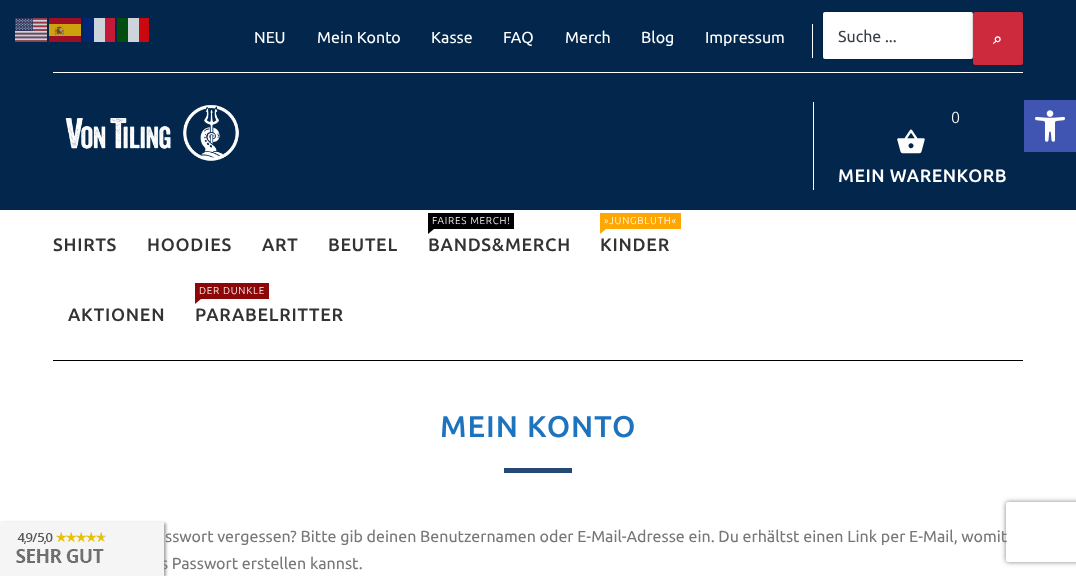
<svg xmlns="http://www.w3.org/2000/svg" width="1076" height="576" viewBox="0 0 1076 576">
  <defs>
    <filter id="blur1" x="-50%" y="-200%" width="200%" height="500%"><feGaussianBlur stdDeviation="4"/></filter>
    <filter id="blur2" x="-50%" y="-200%" width="200%" height="500%"><feGaussianBlur stdDeviation="1.5"/></filter>
    <clipPath id="clip1"><path d="M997 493H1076V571H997ZM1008 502H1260C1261 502 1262 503 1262 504V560C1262 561 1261 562 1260 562H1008C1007 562 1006 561 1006 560V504C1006 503 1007 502 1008 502Z" clip-rule="evenodd"/></clipPath>
    <filter id="blur3" x="-50%" y="-200%" width="200%" height="500%"><feGaussianBlur stdDeviation="2.5"/></filter>
  </defs>
  <rect width="100%" height="100%" fill="#ffffff"/>
  <rect x="0" y="0" width="1076" height="210" fill="#03274c"/>
  <image x="15" y="18" width="32" height="24" href="img1.png"/>
  <image x="49" y="18" width="32" height="24" href="img2.png"/>
  <rect x="83" y="18" width="11" height="24" fill="#012675"/>
  <rect x="94" y="18" width="11" height="24" fill="#cdd4db"/>
  <rect x="105" y="18" width="10" height="24" fill="#c31b36"/>
  <rect x="117" y="18" width="11" height="24" fill="#014d0f"/>
  <rect x="128" y="18" width="11" height="24" fill="#cdd4db"/>
  <rect x="139" y="18" width="10" height="24" fill="#ca080f"/>
  <rect x="812" y="24" width="1" height="34" fill="#ffffff"/>
  <text x="254" y="43" font-family="Ubuntu" font-size="16" fill="#ffffff">NEU</text>
  <text x="317" y="43" font-family="Ubuntu" font-size="16" fill="#ffffff">Mein Konto</text>
  <text x="431" y="43" font-family="Ubuntu" font-size="16" fill="#ffffff">Kasse</text>
  <text x="503" y="43" font-family="Ubuntu" font-size="16" fill="#ffffff">FAQ</text>
  <text x="565" y="43" font-family="Ubuntu" font-size="16" fill="#ffffff">Merch</text>
  <text x="641" y="43" font-family="Ubuntu" font-size="16" fill="#ffffff">Blog</text>
  <text x="705" y="43" font-family="Ubuntu" font-size="16" fill="#ffffff">Impressum</text>
  <rect x="822.5" y="11.5" width="151" height="48" rx="2.5" fill="none" stroke="#000000" stroke-opacity="0.1"/>
  <rect x="823" y="12" width="150" height="47" rx="2" fill="#ffffff"/>
  <text x="838" y="42" font-family="Ubuntu" font-size="16" fill="#393f49">Suche ...</text>
  <rect x="53" y="72" width="970" height="1" fill="#ffffff"/>
  <rect x="973" y="13" width="50" height="53" rx="2" fill="#000000" fill-opacity="0.1" filter="url(#blur1)"/>
  <rect x="972.5" y="11.5" width="51" height="54" rx="2.5" fill="none" stroke="#000000" stroke-opacity="0.1"/>
  <rect x="973" y="12" width="50" height="53" rx="2" fill="#cd2a3e"/>
  <text x="993" y="44" font-family="FreeSerif" font-size="16" font-weight="bold" fill="#ffffff">⌕</text>
  <image x="65" y="105" width="174" height="56" href="img3.png"/>
  <rect x="813" y="102" width="1" height="88" fill="#ffffff"/>
  <text x="951" y="123" font-family="Ubuntu" font-size="16" font-weight="300" fill="#ffffff">0</text>
  <image x="897" y="129" width="28" height="25" href="img4.png"/>
  <text x="838" y="182" font-family="Ubuntu" font-size="18" font-weight="500" letter-spacing="0.5" fill="#ffffff">MEIN WARENKORB</text>
  <text x="53" y="251" font-family="Ubuntu" font-size="18" font-weight="500" letter-spacing="0.75" fill="#333333">SHIRTS</text>
  <text x="147" y="251" font-family="Ubuntu" font-size="18" font-weight="500" letter-spacing="0.75" fill="#333333">HOODIES</text>
  <text x="262" y="251" font-family="Ubuntu" font-size="18" font-weight="500" letter-spacing="0.75" fill="#333333">ART</text>
  <text x="328" y="251" font-family="Ubuntu" font-size="18" font-weight="500" letter-spacing="0.75" fill="#333333">BEUTEL</text>
  <rect x="428" y="213" width="86" height="16" fill="#000000"/>
  <text x="432" y="224" font-family="Ubuntu" font-size="10" font-weight="300" letter-spacing="0.75" fill="#ffffff">FAIRES MERCH!</text>
  <path d="M428 229H434L428 234Z" fill="#000000"/>
  <text x="428" y="251" font-family="Ubuntu" font-size="18" font-weight="500" letter-spacing="0.75" fill="#333333">BANDS&amp;MERCH</text>
  <rect x="600" y="213" width="81" height="16" fill="#ffa600"/>
  <text x="604" y="224" font-family="Ubuntu" font-size="10" font-weight="300" letter-spacing="0.75" fill="#ffffff">»JUNGBLUTH«</text>
  <path d="M600 229H606L600 234Z" fill="#ffa600"/>
  <text x="600" y="251" font-family="Ubuntu" font-size="18" font-weight="500" letter-spacing="0.75" fill="#333333">KINDER</text>
  <text x="68" y="321" font-family="Ubuntu" font-size="18" font-weight="500" letter-spacing="0.75" fill="#333333">AKTIONEN</text>
  <rect x="195" y="283" width="74" height="16" fill="#8c0808"/>
  <text x="199" y="294" font-family="Ubuntu" font-size="10" font-weight="300" letter-spacing="0.75" fill="#ffffff">DER DUNKLE</text>
  <path d="M195 299H201L195 304Z" fill="#8c0808"/>
  <text x="195" y="321" font-family="Ubuntu" font-size="18" font-weight="500" letter-spacing="0.75" fill="#333333">PARABELRITTER</text>
  <rect x="1024" y="100" width="52" height="52" fill="#4054b2"/>
  <image x="1035" y="110" width="30" height="32" href="img5.png"/>
  <rect x="53" y="360" width="970" height="1" fill="#000000"/>
  <rect x="1" y="523" width="165" height="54" fill="#a2a2a2" filter="url(#blur2)"/>
  <text x="161" y="569" font-family="Ubuntu" font-size="16" fill="#777777">s Passwort erstellen kannst.</text>
  <image x="0" y="522" width="164" height="54" href="img6.png"/>
  <text x="440" y="437" font-family="Ubuntu" font-size="30" font-weight="500" letter-spacing="1" fill="#1e73be">MEIN KONTO</text>
  <rect x="504" y="468" width="68" height="5" fill="#244972"/>
  <text x="165" y="542" font-family="Ubuntu" font-size="16" fill="#777777">sswort vergessen? Bitte gib deinen Benutzernamen oder E-Mail-Adresse ein. Du erhältst einen Link per E-Mail, womit</text>
  <g clip-path="url(#clip1)">
    <rect x="1006" y="502" width="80" height="60" rx="2" fill="#808080" filter="url(#blur3)"/>
  </g>
</svg>
